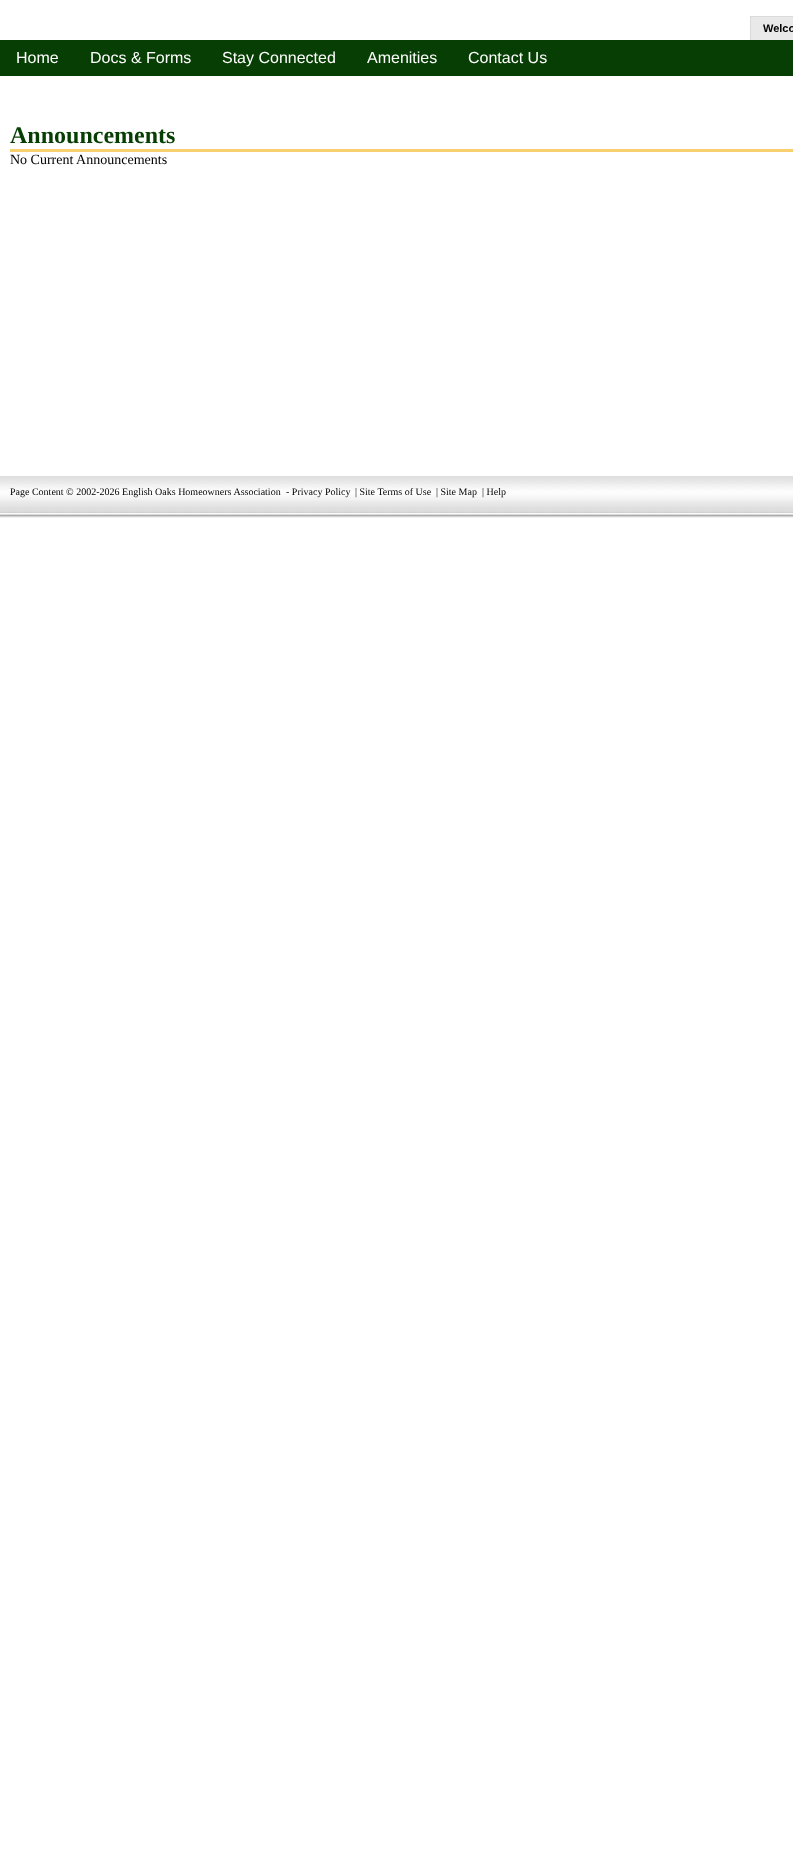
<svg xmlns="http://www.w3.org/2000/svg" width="793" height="1853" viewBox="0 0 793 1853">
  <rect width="100%" height="100%" fill="#ffffff"/>
  <rect x="750" y="16" width="43" height="1" fill="#dadada"/>
  <rect x="750" y="16" width="1" height="24" fill="#dadada"/>
  <rect x="751" y="17" width="42" height="23" fill="#e9e9e9"/>
  <text x="763" y="32" font-family="Liberation Sans" font-size="11" font-weight="bold" fill="#000000">Welco</text>
  <rect x="0" y="40" width="793" height="36" fill="#073e03"/>
  <text x="16" y="63" font-family="Liberation Sans" font-size="16" fill="#ffffff">Home</text>
  <text x="90" y="63" font-family="Liberation Sans" font-size="16" fill="#ffffff">Docs &amp; Forms</text>
  <text x="222" y="63" font-family="Liberation Sans" font-size="16" fill="#ffffff">Stay Connected</text>
  <text x="367" y="63" font-family="Liberation Sans" font-size="16" fill="#ffffff">Amenities</text>
  <text x="468" y="63" font-family="Liberation Sans" font-size="16" fill="#ffffff">Contact Us</text>
  <rect x="10" y="149" width="783" height="3" fill="#f7cf6e"/>
  <text x="10" y="143" font-family="Liberation Serif" font-size="24" font-weight="bold" fill="#073e03">Announcements</text>
  <text x="10" y="164" font-family="Liberation Serif" font-size="14" fill="#000000">No Current Announcements</text>
  <image x="0" y="476" width="793" height="42" href="img1.png"/>
  <text x="10" y="495" font-family="Liberation Serif" font-size="10" fill="#000000">Page Content © 2002-2026 English Oaks Homeowners Association</text>
  <text x="286" y="495" font-family="Liberation Serif" font-size="10" fill="#000000">- Privacy Policy</text>
  <text x="355" y="495" font-family="Liberation Serif" font-size="10" fill="#000000">| Site Terms of Use</text>
  <text x="436" y="495" font-family="Liberation Serif" font-size="10" fill="#000000">| Site Map</text>
  <text x="482" y="495" font-family="Liberation Serif" font-size="10" fill="#000000">| Help</text>
</svg>
